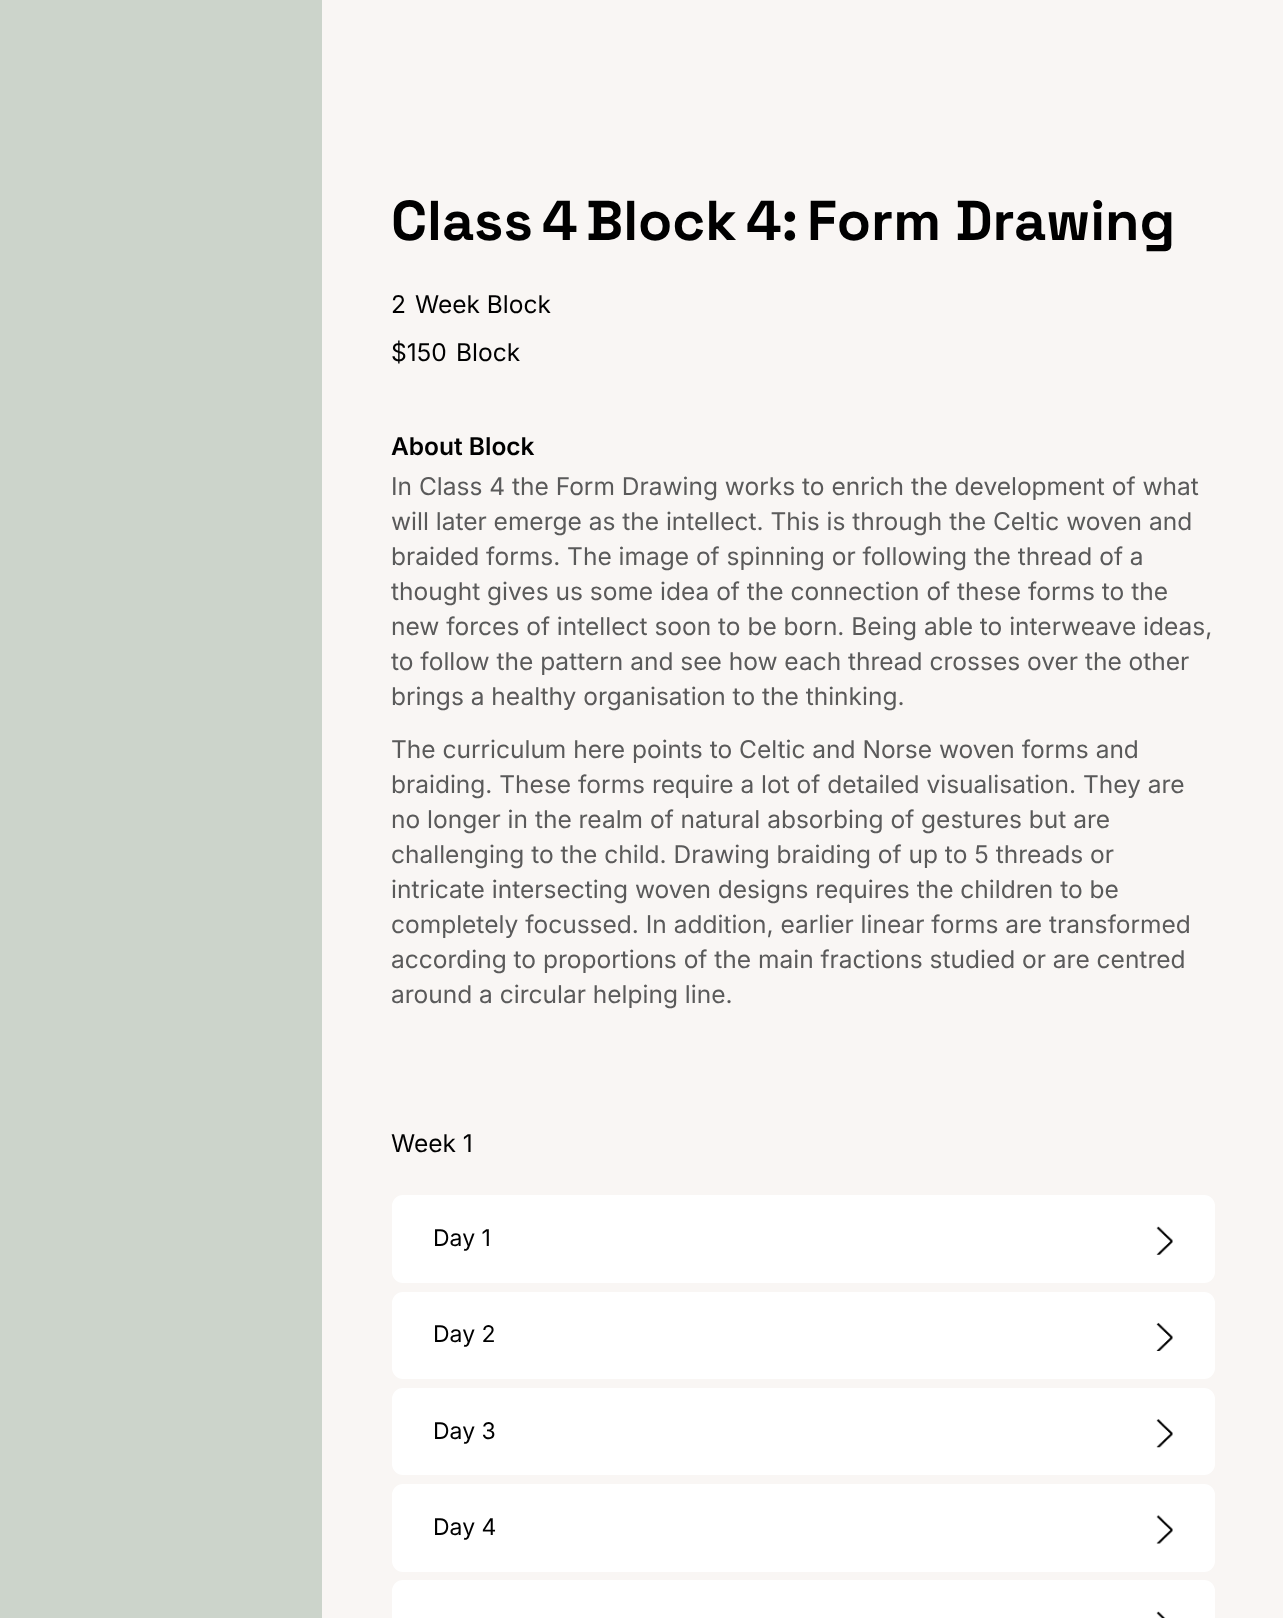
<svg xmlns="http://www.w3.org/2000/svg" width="1283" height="1618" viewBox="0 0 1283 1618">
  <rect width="100%" height="100%" fill="#f9f6f4"/>
  <rect x="0" y="0" width="322" height="1618" fill="#ccd4cb"/>
  <text x="391" y="240" font-family="Space Grotesk" font-size="56" font-weight="bold" fill="#000000">Class</text>
  <text x="542" y="240" font-family="Space Grotesk" font-size="56" font-weight="bold" fill="#000000">4</text>
  <text x="586" y="240" font-family="Space Grotesk" font-size="56" font-weight="bold" fill="#000000">Block</text>
  <text x="746" y="240" font-family="Space Grotesk" font-size="56" font-weight="bold" fill="#000000">4:</text>
  <text x="807" y="240" font-family="Space Grotesk" font-size="56" font-weight="bold" fill="#000000">Form Drawing</text>
  <text x="391" y="313" font-family="Inter" font-size="24.5" fill="#000000">2</text>
  <text x="415" y="313" font-family="Inter" font-size="24.5" fill="#000000">Week Block</text>
  <text x="391" y="361" font-family="Inter" font-size="24.5" fill="#000000">$150</text>
  <text x="456" y="361" font-family="Inter" font-size="24.5" fill="#000000">Block</text>
  <text x="391" y="455" font-family="Inter" font-size="24.5" font-weight="600" fill="#000000">About Block</text>
  <text x="391" y="495" font-family="Inter" font-size="24.5" fill="#5a5a5a">In Class 4 the Form Drawing works to enrich the development of what</text>
  <text x="391" y="530" font-family="Inter" font-size="24.5" fill="#5a5a5a">will later emerge as the intellect. This is through the Celtic woven and</text>
  <text x="391" y="565" font-family="Inter" font-size="24.5" fill="#5a5a5a">braided forms. The image of spinning or following the thread of a</text>
  <text x="391" y="600" font-family="Inter" font-size="24.5" fill="#5a5a5a">thought gives us some idea of the connection of these forms to the</text>
  <text x="391" y="635" font-family="Inter" font-size="24.5" fill="#5a5a5a">new forces of intellect soon to be born. Being able to interweave ideas,</text>
  <text x="391" y="670" font-family="Inter" font-size="24.5" fill="#5a5a5a">to follow the pattern and see how each thread crosses over the other</text>
  <text x="391" y="705" font-family="Inter" font-size="24.5" fill="#5a5a5a">brings a healthy organisation to the thinking.</text>
  <text x="391" y="758" font-family="Inter" font-size="24.5" fill="#5a5a5a">The curriculum here points to Celtic and Norse woven forms and</text>
  <text x="391" y="793" font-family="Inter" font-size="24.5" fill="#5a5a5a">braiding. These forms require a lot of detailed visualisation. They are</text>
  <text x="391" y="828" font-family="Inter" font-size="24.5" fill="#5a5a5a">no longer in the realm of natural absorbing of gestures but are</text>
  <text x="391" y="863" font-family="Inter" font-size="24.5" fill="#5a5a5a">challenging to the child. Drawing braiding of up to 5 threads or</text>
  <text x="391" y="898" font-family="Inter" font-size="24.5" fill="#5a5a5a">intricate intersecting woven designs requires the children to be</text>
  <text x="391" y="933" font-family="Inter" font-size="24.5" fill="#5a5a5a">completely focussed. In addition, earlier linear forms are transformed</text>
  <text x="391" y="968" font-family="Inter" font-size="24.5" fill="#5a5a5a">according to proportions of the main fractions studied or are centred</text>
  <text x="391" y="1003" font-family="Inter" font-size="24.5" fill="#5a5a5a">around a circular helping line.</text>
  <text x="391" y="1152" font-family="Inter" font-size="24.5" fill="#000000">Week 1</text>
  <rect x="392" y="1195" width="823" height="88" rx="11" fill="#ffffff"/>
  <text x="433" y="1246" font-family="Inter" font-size="23" fill="#000000">Day 1</text>
  <image x="1156" y="1226" width="17" height="29" href="img1.png"/>
  <rect x="392" y="1292" width="823" height="87" rx="11" fill="#ffffff"/>
  <text x="433" y="1342" font-family="Inter" font-size="23" fill="#000000">Day 2</text>
  <image x="1156" y="1322" width="17" height="29" href="img2.png"/>
  <rect x="392" y="1388" width="823" height="87" rx="11" fill="#ffffff"/>
  <text x="433" y="1439" font-family="Inter" font-size="23" fill="#000000">Day 3</text>
  <image x="1156" y="1419" width="17" height="29" href="img3.png"/>
  <rect x="392" y="1484" width="823" height="88" rx="11" fill="#ffffff"/>
  <text x="433" y="1535" font-family="Inter" font-size="23" fill="#000000">Day 4</text>
  <image x="1156" y="1515" width="17" height="29" href="img4.png"/>
  <rect x="392" y="1580" width="823" height="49" rx="11" fill="#ffffff"/>
  <image x="1156" y="1611" width="10" height="7" href="img5.png"/>
</svg>
